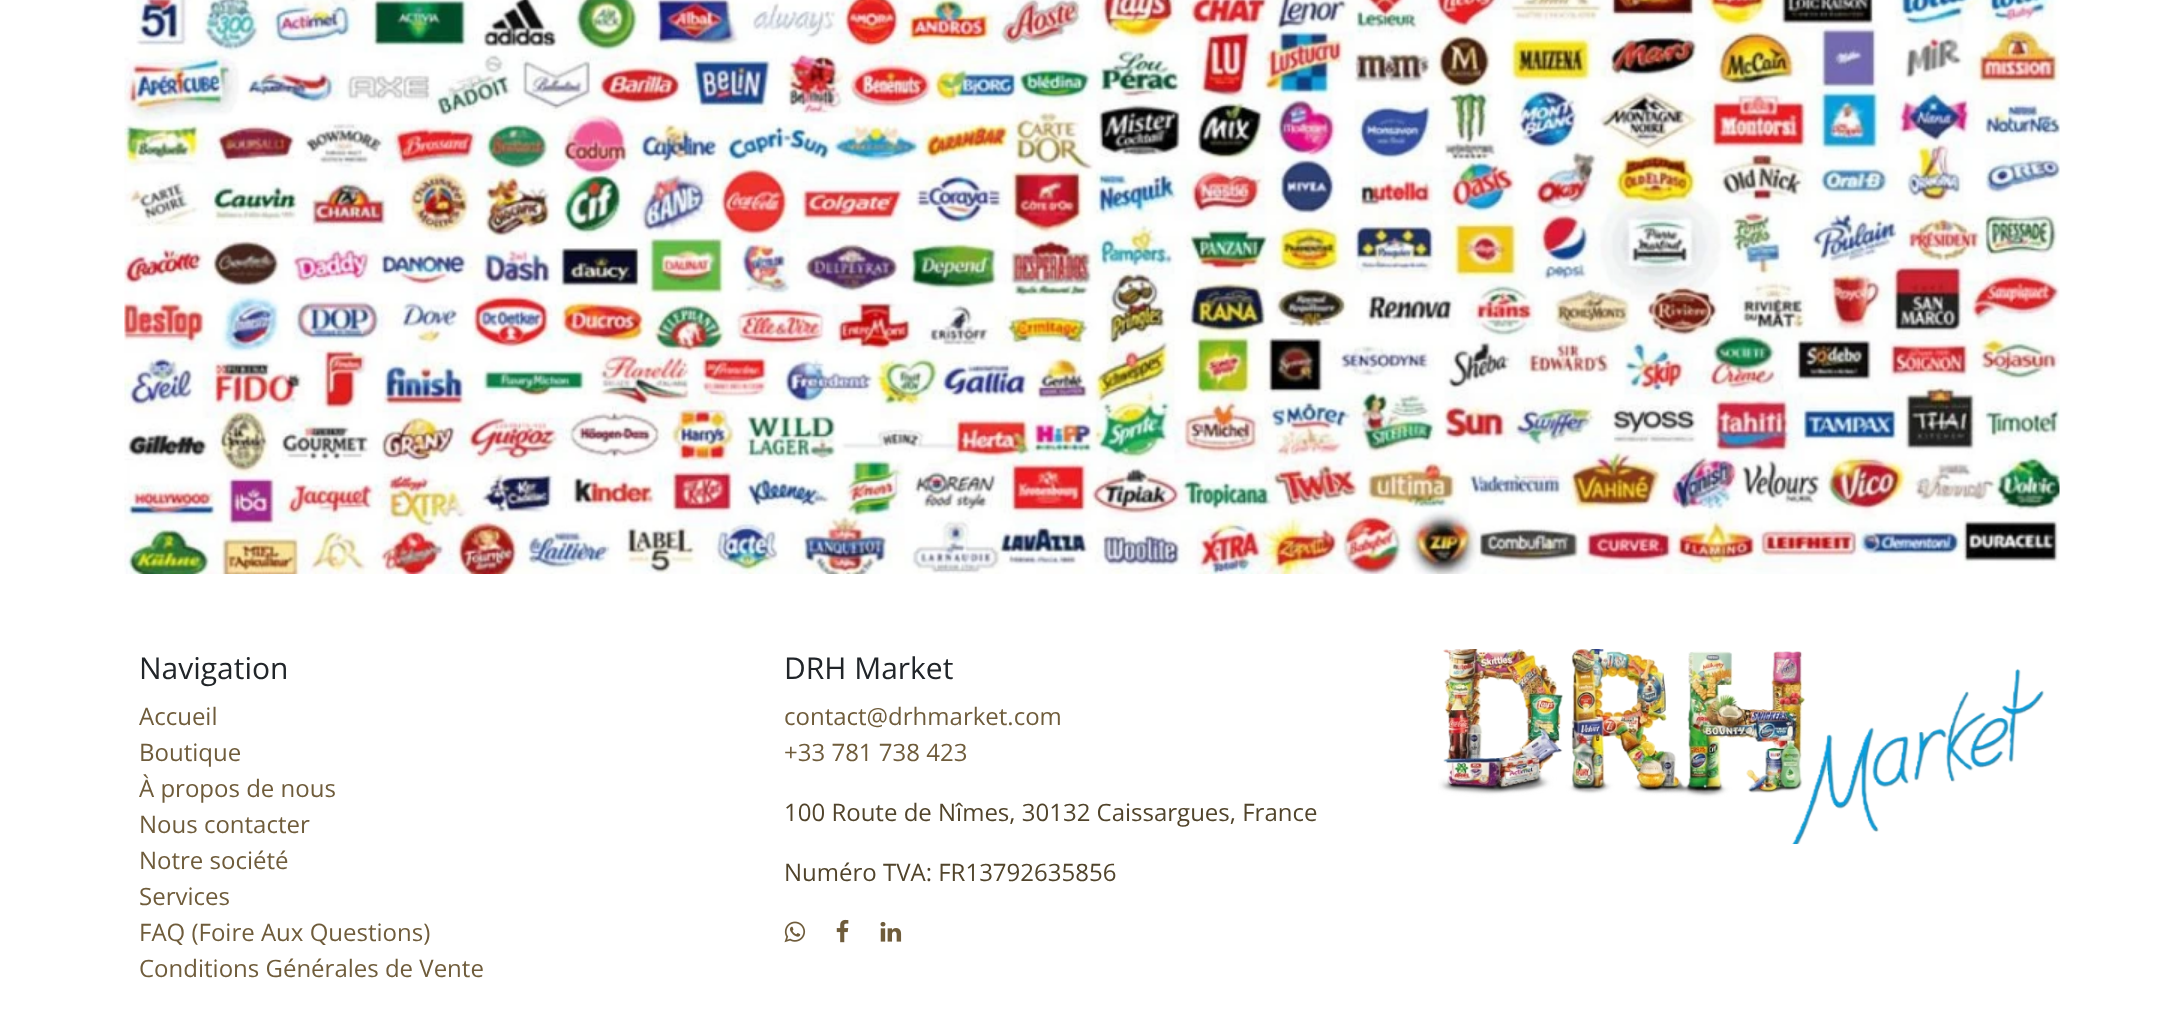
<svg xmlns="http://www.w3.org/2000/svg" width="2182" height="1016" viewBox="0 0 2182 1016">
  <rect width="100%" height="100%" fill="#ffffff"/>
  <image x="124" y="0" width="1936" height="574" href="img1.png"/>
  <text x="139" y="679" font-family="Open Sans" font-size="30" fill="#212529">Navigation</text>
  <text x="139" y="725" font-family="Open Sans" font-size="24" fill="#6f5c3b">Accueil</text>
  <text x="139" y="761" font-family="Open Sans" font-size="24" fill="#6f5c3b">Boutique</text>
  <text x="139" y="797" font-family="Open Sans" font-size="24" fill="#6f5c3b">À propos de nous</text>
  <text x="139" y="833" font-family="Open Sans" font-size="24" fill="#6f5c3b">Nous contacter</text>
  <text x="139" y="869" font-family="Open Sans" font-size="24" fill="#6f5c3b">Notre société</text>
  <text x="139" y="905" font-family="Open Sans" font-size="24" fill="#6f5c3b">Services</text>
  <text x="139" y="941" font-family="Open Sans" font-size="24" fill="#6f5c3b">FAQ (Foire Aux Questions)</text>
  <text x="139" y="977" font-family="Open Sans" font-size="24" fill="#6f5c3b">Conditions Générales de Vente</text>
  <text x="784" y="679" font-family="Open Sans" font-size="30" fill="#212529">DRH Market</text>
  <text x="784" y="725" font-family="Open Sans" font-size="24" fill="#6f5c3b">contact@drhmarket.com</text>
  <text x="784" y="761" font-family="Open Sans" font-size="24" fill="#6f5c3b">+33 781 738 423</text>
  <text x="784" y="821" font-family="Open Sans" font-size="24" fill="#51442b">100 Route de Nîmes, 30132 Caissargues, France</text>
  <text x="784" y="881" font-family="Open Sans" font-size="24" fill="#51442b">Numéro TVA: FR13792635856</text>
  <image x="784" y="921" width="22" height="22" href="img2.png"/>
  <image x="836" y="919" width="13" height="24" href="img3.png"/>
  <image x="880" y="921" width="22" height="21" href="img4.png"/>
  <image x="1438" y="649" width="607" height="195" href="img5.png"/>
</svg>
